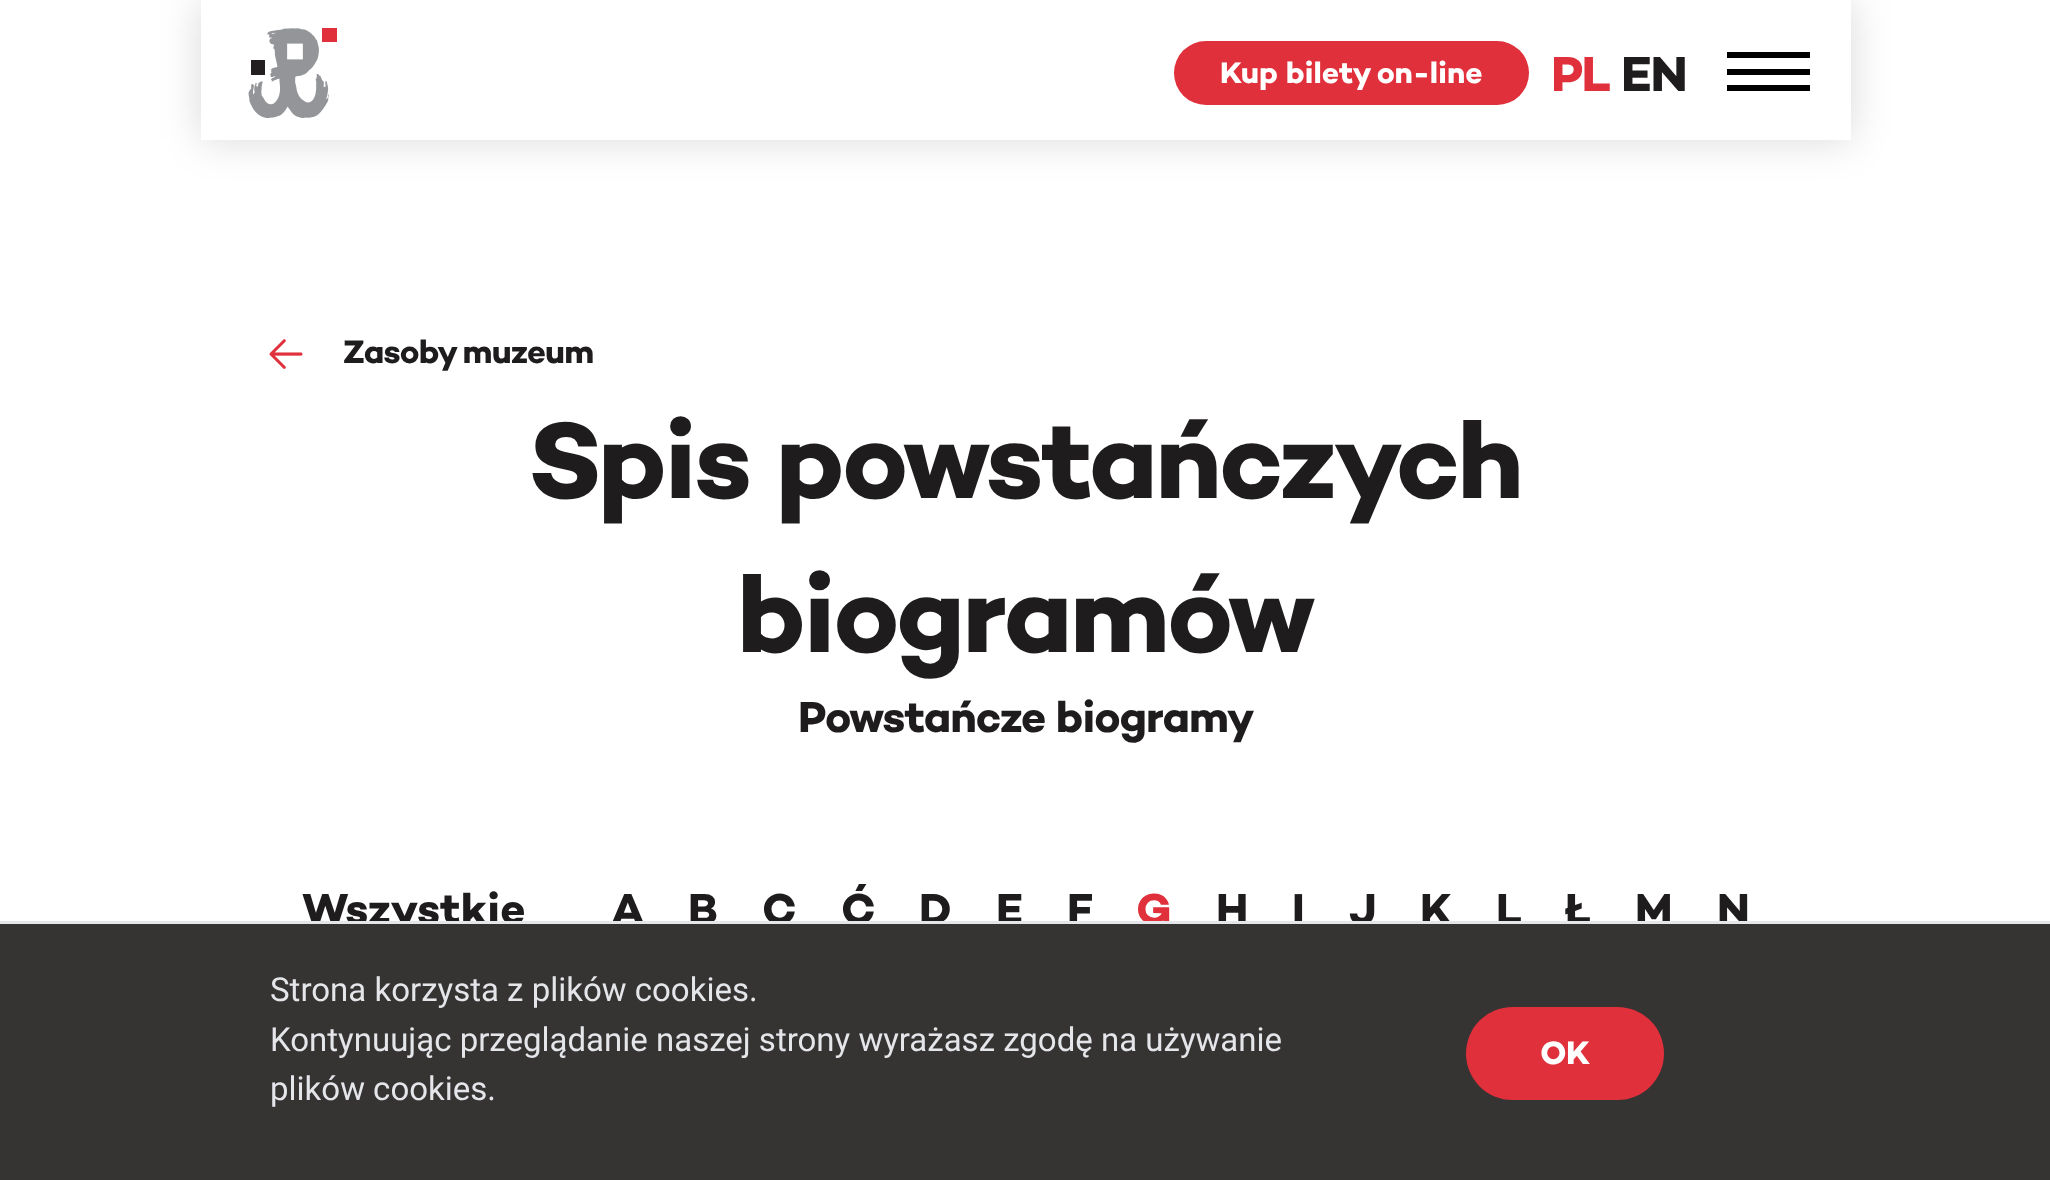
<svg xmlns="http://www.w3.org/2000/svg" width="2050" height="1180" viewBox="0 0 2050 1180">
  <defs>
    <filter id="blur1" x="-50%" y="-200%" width="200%" height="500%"><feGaussianBlur stdDeviation="20.5"/></filter>
  </defs>
  <rect width="100%" height="100%" fill="#ffffff"/>
  <rect x="201" y="0" width="1650" height="140" fill="#000000" fill-opacity="0.15" filter="url(#blur1)"/>
  <rect x="201" y="0" width="1650" height="140" fill="#ffffff"/>
  <image x="248" y="28" width="89" height="90" href="img1.png"/>
  <rect x="1174" y="41" width="355" height="64" rx="32" fill="#e0303b"/>
  <text x="1220" y="83" font-family="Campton" font-size="30.25" font-weight="bold" fill="#ffffff">Kup bilety on-line</text>
  <text x="1551" y="91" font-family="Campton" font-size="50" font-weight="bold" letter-spacing="-1" fill="#e0303b">PL</text>
  <text x="1621" y="91" font-family="Campton" font-size="50" font-weight="bold" letter-spacing="-1" fill="#1e1c1c">EN</text>
  <rect x="1727" y="52" width="83" height="6" fill="#000000"/>
  <rect x="1727" y="69" width="83" height="6" fill="#000000"/>
  <rect x="1727" y="85" width="83" height="6" fill="#000000"/>
  <image x="269" y="339" width="34" height="30" href="img2.png"/>
  <text x="343" y="363" font-family="Campton" font-size="33" font-weight="bold" letter-spacing="-0.7" fill="#1e1c1c">Zasoby muzeum</text>
  <text x="528" y="498" font-family="Campton" font-size="110" font-weight="bold" letter-spacing="-2.25" fill="#1e1c1c">Spis powstańczych</text>
  <text x="737" y="652" font-family="Campton" font-size="110" font-weight="bold" letter-spacing="-2.25" fill="#1e1c1c">biogramów</text>
  <text x="798" y="732" font-family="Campton" font-size="44" font-weight="bold" letter-spacing="-0.9" fill="#1e1c1c">Powstańcze biogramy</text>
  <text x="302" y="924" font-family="Campton" font-size="44" font-weight="bold" fill="#1e1c1c">Wszystkie</text>
  <text x="611" y="924" font-family="Campton" font-size="44" font-weight="bold" fill="#1e1c1c">A</text>
  <text x="688" y="924" font-family="Campton" font-size="44" font-weight="bold" fill="#1e1c1c">B</text>
  <text x="762" y="924" font-family="Campton" font-size="44" font-weight="bold" fill="#1e1c1c">C</text>
  <text x="841" y="924" font-family="Campton" font-size="44" font-weight="bold" fill="#1e1c1c">Ć</text>
  <text x="919" y="924" font-family="Campton" font-size="44" font-weight="bold" fill="#1e1c1c">D</text>
  <text x="996" y="924" font-family="Campton" font-size="44" font-weight="bold" fill="#1e1c1c">E</text>
  <text x="1067" y="924" font-family="Campton" font-size="44" font-weight="bold" fill="#1e1c1c">F</text>
  <text x="1136" y="924" font-family="Campton" font-size="44" font-weight="bold" fill="#e0303b">G</text>
  <text x="1216" y="924" font-family="Campton" font-size="44" font-weight="bold" fill="#1e1c1c">H</text>
  <text x="1292" y="924" font-family="Campton" font-size="44" font-weight="bold" fill="#1e1c1c">I</text>
  <text x="1349" y="924" font-family="Campton" font-size="44" font-weight="bold" fill="#1e1c1c">J</text>
  <text x="1420" y="924" font-family="Campton" font-size="44" font-weight="bold" fill="#1e1c1c">K</text>
  <text x="1496" y="924" font-family="Campton" font-size="44" font-weight="bold" fill="#1e1c1c">L</text>
  <text x="1565" y="924" font-family="Campton" font-size="44" font-weight="bold" fill="#1e1c1c">Ł</text>
  <text x="1635" y="924" font-family="Campton" font-size="44" font-weight="bold" fill="#1e1c1c">M</text>
  <text x="1717" y="924" font-family="Campton" font-size="44" font-weight="bold" fill="#1e1c1c">N</text>
  <rect x="0" y="924" width="2050" height="256" fill="#363333"/>
  <rect x="0" y="921" width="2050" height="3" fill="#e4e6ea"/>
  <text x="270" y="1001" font-family="Roboto" font-size="33" fill="#e4e6ea">Strona korzysta z plików cookies.</text>
  <text x="270" y="1051" font-family="Roboto" font-size="33" fill="#e4e6ea">Kontynuując przeglądanie naszej strony wyrażasz zgodę na używanie</text>
  <text x="270" y="1100" font-family="Roboto" font-size="33" fill="#e4e6ea">plików cookies.</text>
  <rect x="1466" y="1007" width="198" height="93" rx="46.5" fill="#e0303b"/>
  <text x="1540" y="1064" font-family="Campton" font-size="33" font-weight="bold" letter-spacing="-0.7" fill="#ffffff">OK</text>
</svg>
